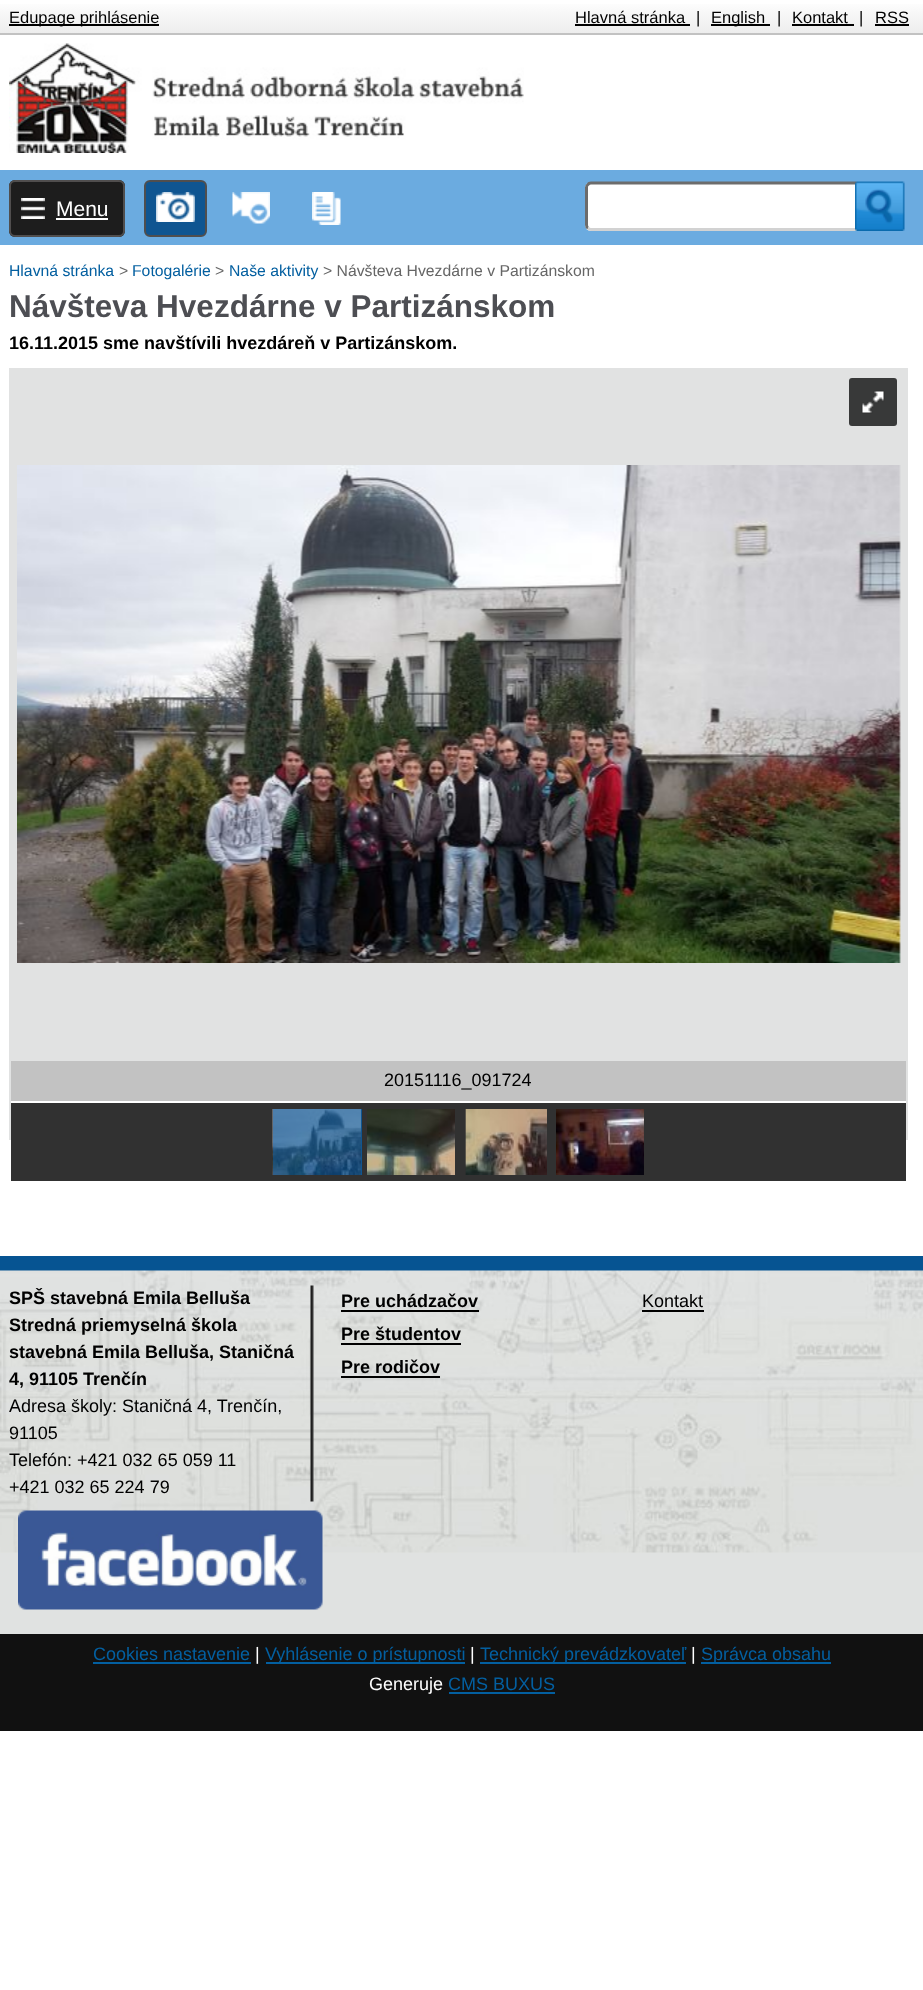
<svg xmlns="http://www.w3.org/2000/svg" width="923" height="1990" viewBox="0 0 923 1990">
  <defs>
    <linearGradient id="g1" gradientUnits="userSpaceOnUse" x1="462" y1="0" x2="462" y2="33"><stop offset="0" stop-color="#ffffff"/><stop offset="0.47" stop-color="#f6f6f6"/><stop offset="1" stop-color="#ededed"/></linearGradient>
  </defs>
  <rect width="100%" height="100%" fill="#ffffff"/>
  <rect x="0" y="4" width="923" height="29" fill="url(#g1)"/>
  <rect x="0" y="33" width="923" height="2" fill="#c2c2c2"/>
  <rect x="9" y="24" width="150" height="2" fill="#000000"/>
  <text x="9" y="23" font-family="Liberation Sans" font-size="16.5" fill="#000000">Edupage prihlásenie</text>
  <text x="575" y="23" font-family="Liberation Sans" font-size="16.5" fill="#000000">Hlavná stránka</text>
  <rect x="575" y="24" width="115" height="2" fill="#000000"/>
  <text x="696" y="23" font-family="Liberation Sans" font-size="16.5" fill="#000000">|</text>
  <rect x="711" y="24" width="59" height="2" fill="#000000"/>
  <text x="711" y="23" font-family="Liberation Sans" font-size="16.5" fill="#000000">English</text>
  <text x="777" y="23" font-family="Liberation Sans" font-size="16.5" fill="#000000">|</text>
  <text x="792" y="23" font-family="Liberation Sans" font-size="16.5" fill="#000000">Kontakt</text>
  <rect x="792" y="24" width="62" height="2" fill="#000000"/>
  <text x="859" y="23" font-family="Liberation Sans" font-size="16.5" fill="#000000">|</text>
  <text x="875" y="23" font-family="Liberation Sans" font-size="16.5" fill="#000000">RSS</text>
  <rect x="875" y="24" width="34" height="2" fill="#000000"/>
  <image x="9" y="43" width="515" height="110" href="img1.png"/>
  <rect x="0" y="170" width="923" height="75" fill="#6babe0"/>
  <rect x="585" y="182" width="276" height="49" rx="6" fill="#ffffff"/>
  <path d="M858 184.5C859 185 859.5 186.5 859.5 187.5V225C859.5 226 859 227.5 858 228C857.5 229 856 229.5 855 229.5H591C590 229.5 588.5 229 588 228" fill="none" stroke="#d2d2d2" stroke-width="3"/>
  <path d="M588 228C587 227.5 586.5 226 586.5 225V187.5C586.5 186.5 587 185 588 184.5C588.5 183.5 590 183 591 183H855C856 183 857.5 183.5 858 184.5" fill="none" stroke="#6c6c6c" stroke-width="3"/>
  <image x="855" y="181" width="50" height="50" href="img2.png"/>
  <rect x="9" y="180" width="116" height="57" rx="6" fill="#1d1d1d"/>
  <image x="21" y="198" width="24" height="21" href="img3.png"/>
  <rect x="10" y="181" width="114" height="55" rx="5" fill="none" stroke="#504e4e" stroke-width="2"/>
  <text x="56" y="216" font-family="Liberation Sans" font-size="21" fill="#ffffff">Menu</text>
  <rect x="56" y="218" width="52" height="2" fill="#ffffff"/>
  <rect x="145" y="181" width="61" height="55" rx="5" fill="#0f5591" stroke="#504e4e" stroke-width="2"/>
  <image x="156" y="192" width="39" height="30" href="img4.png"/>
  <image x="232" y="192" width="38" height="32" href="img5.png"/>
  <image x="312" y="192" width="29" height="33" href="img6.png"/>
  <text x="9" y="276" font-family="Liberation Sans" font-size="15.75" fill="#035fa0">Hlavná stránka</text>
  <text x="119" y="276" font-family="Liberation Sans" font-size="15.75" fill="#666666">&gt;</text>
  <text x="132" y="276" font-family="Liberation Sans" font-size="15.75" fill="#035fa0">Fotogalérie</text>
  <text x="215" y="276" font-family="Liberation Sans" font-size="15.75" fill="#666666">&gt;</text>
  <text x="229" y="276" font-family="Liberation Sans" font-size="15.75" fill="#035fa0">Naše aktivity</text>
  <text x="323" y="276" font-family="Liberation Sans" font-size="15.75" fill="#666666">&gt; Návšteva Hvezdárne v Partizánskom</text>
  <text x="9" y="317" font-family="Liberation Sans" font-size="31.5" font-weight="bold" fill="#4d4e53">Návšteva Hvezdárne v Partizánskom</text>
  <text x="9" y="349" font-family="Liberation Sans" font-size="18" font-weight="bold" fill="#000000">16.11.2015 sme navštívili hvezdáreň v Partizánskom.</text>
  <rect x="10" y="369" width="897" height="770" fill="none" stroke="#e1e2e2" stroke-width="2"/>
  <rect x="11" y="370" width="895" height="691" fill="#e1e2e2"/>
  <rect x="849" y="378" width="48" height="48" rx="3" fill="#383939"/>
  <image x="861" y="390" width="24" height="24" href="img7.png"/>
  <image x="17" y="465" width="884" height="498" href="img8.png"/>
  <rect x="11" y="1061" width="895" height="40" fill="#c2c2c2"/>
  <text x="384" y="1086" font-family="Liberation Sans" font-size="18" fill="#000000">20151116_091724</text>
  <rect x="11" y="1103" width="895" height="78" fill="#313131"/>
  <rect x="273" y="1109" width="89" height="66" fill="#0f5591"/>
  <image x="272" y="1109" width="89" height="66" href="img9.png"/>
  <image x="367" y="1109" width="88" height="66" href="img10.png"/>
  <image x="465" y="1109" width="82" height="66" href="img11.png"/>
  <image x="556" y="1109" width="88" height="66" href="img12.png"/>
  <rect x="0" y="1552" width="923" height="82" fill="#e0e2e1"/>
  <rect x="0" y="1256" width="923" height="15" fill="#065492"/>
  <image x="0" y="1270" width="923" height="283" href="img13.png"/>
  <image x="310" y="1285" width="4" height="217" href="img14.png"/>
  <text x="9" y="1304" font-family="Liberation Sans" font-size="18" font-weight="bold" fill="#000000">SPŠ stavebná Emila Belluša</text>
  <text x="9" y="1331" font-family="Liberation Sans" font-size="18" font-weight="bold" fill="#000000">Stredná priemyselná škola</text>
  <text x="9" y="1358" font-family="Liberation Sans" font-size="18" font-weight="bold" fill="#000000">stavebná Emila Belluša, Staničná</text>
  <text x="9" y="1385" font-family="Liberation Sans" font-size="18" font-weight="bold" fill="#000000">4, 91105 Trenčín</text>
  <text x="9" y="1412" font-family="Liberation Sans" font-size="18" fill="#000000">Adresa školy: Staničná 4, Trenčín,</text>
  <text x="9" y="1439" font-family="Liberation Sans" font-size="18" fill="#000000">91105</text>
  <text x="9" y="1466" font-family="Liberation Sans" font-size="18" fill="#000000">Telefón: +421 032 65 059 11</text>
  <text x="9" y="1493" font-family="Liberation Sans" font-size="18" fill="#000000">+421 032 65 224 79</text>
  <text x="341" y="1307" font-family="Liberation Sans" font-size="18" font-weight="bold" fill="#000000">Pre uchádzačov</text>
  <rect x="341" y="1310" width="138" height="2" fill="#000000"/>
  <text x="341" y="1340" font-family="Liberation Sans" font-size="18" font-weight="bold" fill="#000000">Pre študentov</text>
  <rect x="341" y="1343" width="120" height="2" fill="#000000"/>
  <text x="341" y="1373" font-family="Liberation Sans" font-size="18" font-weight="bold" fill="#000000">Pre rodičov</text>
  <rect x="341" y="1376" width="99" height="2" fill="#000000"/>
  <text x="642" y="1307" font-family="Liberation Sans" font-size="18" fill="#000000">Kontakt</text>
  <rect x="642" y="1310" width="62" height="2" fill="#000000"/>
  <image x="18" y="1510" width="305" height="100" href="img15.png"/>
  <rect x="0" y="1634" width="923" height="97" fill="#111111"/>
  <text x="93" y="1660" font-family="Liberation Sans" font-size="18" fill="#035fa0">Cookies nastavenie</text>
  <rect x="93" y="1662" width="158" height="2" fill="#035fa0"/>
  <text x="255" y="1660" font-family="Liberation Sans" font-size="18" fill="#ffffff">|</text>
  <rect x="266" y="1662" width="199" height="2" fill="#035fa0"/>
  <text x="265" y="1660" font-family="Liberation Sans" font-size="18" fill="#035fa0">Vyhlásenie o prístupnosti</text>
  <text x="470" y="1660" font-family="Liberation Sans" font-size="18" fill="#ffffff">|</text>
  <rect x="480" y="1662" width="206" height="2" fill="#035fa0"/>
  <text x="480" y="1660" font-family="Liberation Sans" font-size="18" fill="#035fa0">Technický prevádzkovateľ</text>
  <text x="691" y="1660" font-family="Liberation Sans" font-size="18" fill="#ffffff">|</text>
  <rect x="701" y="1662" width="130" height="2" fill="#035fa0"/>
  <text x="701" y="1660" font-family="Liberation Sans" font-size="18" fill="#035fa0">Správca obsahu</text>
  <text x="369" y="1690" font-family="Liberation Sans" font-size="18" fill="#ffffff">Generuje</text>
  <text x="448" y="1690" font-family="Liberation Sans" font-size="18" fill="#035fa0">CMS BUXUS</text>
  <rect x="449" y="1692" width="106" height="2" fill="#035fa0"/>
</svg>
